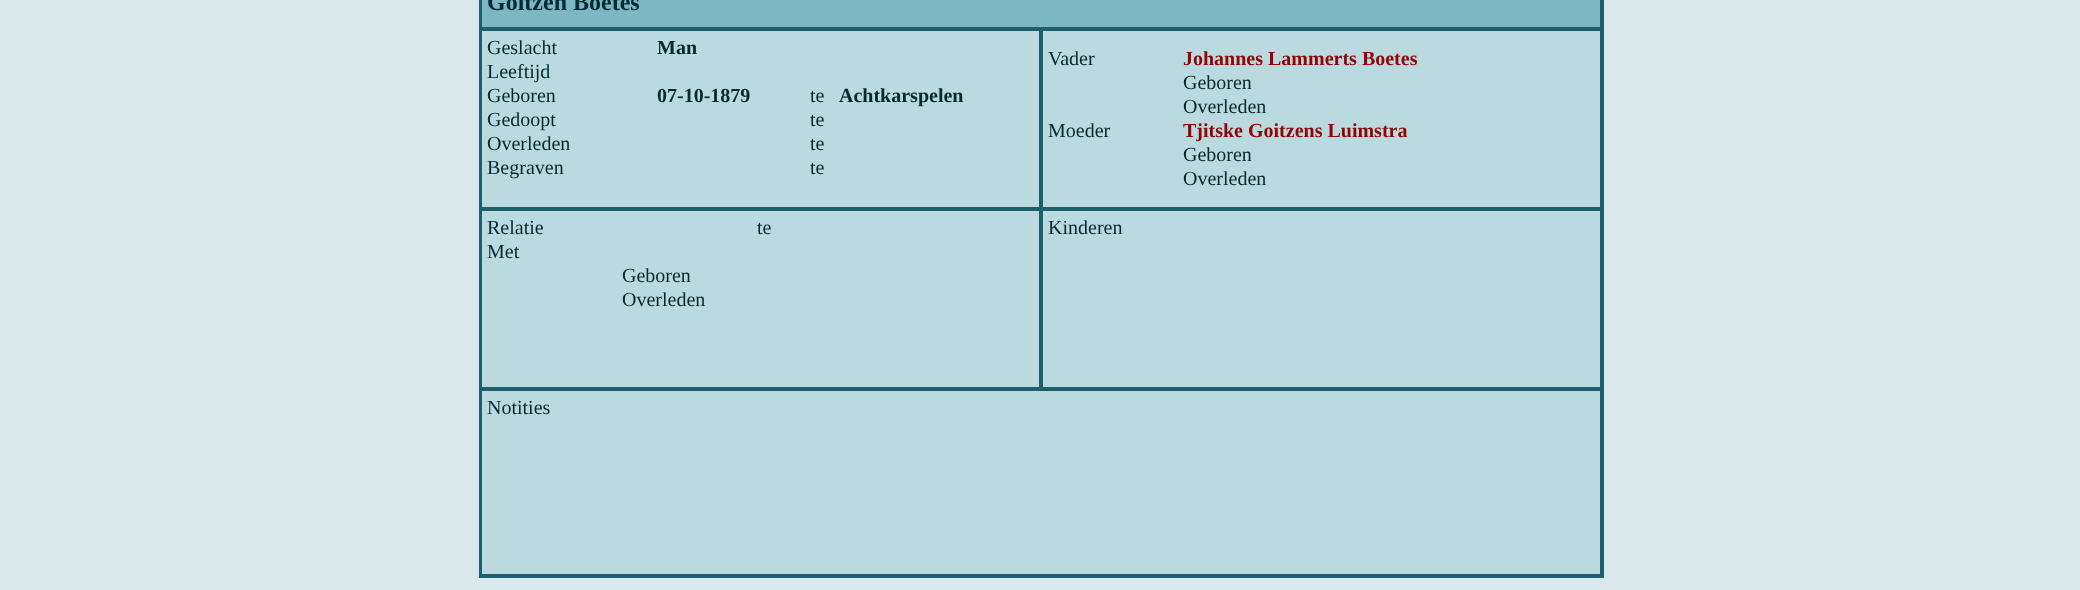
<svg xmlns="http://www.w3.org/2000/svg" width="2080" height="590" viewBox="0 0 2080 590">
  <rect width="100%" height="100%" fill="#dbe9ec"/>
  <rect x="482" y="31" width="1118" height="543" fill="#badae0"/>
  <rect x="480" y="-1" width="1123" height="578" fill="none" stroke="#1e5f6c" stroke-width="2"/>
  <rect x="481" y="-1" width="1120" height="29" fill="#7db7c3" stroke="#1e5f6c" stroke-width="2"/>
  <text x="487" y="10" font-family="Liberation Serif" font-size="24" font-weight="bold" fill="#012a32">Goitzen Boetes</text>
  <rect x="481" y="30" width="559" height="178" fill="none" stroke="#1e5f6c" stroke-width="2"/>
  <text x="487" y="54" font-family="Liberation Serif" font-size="20" fill="#012a32">Geslacht</text>
  <text x="657" y="54" font-family="Liberation Serif" font-size="20" font-weight="bold" fill="#012a32">Man</text>
  <text x="487" y="78" font-family="Liberation Serif" font-size="20" fill="#012a32">Leeftijd</text>
  <text x="487" y="102" font-family="Liberation Serif" font-size="20" fill="#012a32">Geboren</text>
  <text x="657" y="102" font-family="Liberation Serif" font-size="20" font-weight="bold" fill="#012a32">07-10-1879</text>
  <text x="810" y="102" font-family="Liberation Serif" font-size="20" fill="#012a32">te</text>
  <text x="839" y="102" font-family="Liberation Serif" font-size="20" font-weight="bold" fill="#012a32">Achtkarspelen</text>
  <text x="487" y="126" font-family="Liberation Serif" font-size="20" fill="#012a32">Gedoopt</text>
  <text x="810" y="126" font-family="Liberation Serif" font-size="20" fill="#012a32">te</text>
  <text x="487" y="150" font-family="Liberation Serif" font-size="20" fill="#012a32">Overleden</text>
  <text x="810" y="150" font-family="Liberation Serif" font-size="20" fill="#012a32">te</text>
  <text x="487" y="174" font-family="Liberation Serif" font-size="20" fill="#012a32">Begraven</text>
  <text x="810" y="174" font-family="Liberation Serif" font-size="20" fill="#012a32">te</text>
  <rect x="1042" y="30" width="559" height="178" fill="none" stroke="#1e5f6c" stroke-width="2"/>
  <text x="1048" y="65" font-family="Liberation Serif" font-size="20" fill="#012a32">Vader</text>
  <text x="1183" y="65" font-family="Liberation Serif" font-size="20" font-weight="bold" fill="#930505">Johannes Lammerts Boetes</text>
  <text x="1183" y="89" font-family="Liberation Serif" font-size="20" fill="#012a32">Geboren</text>
  <text x="1183" y="113" font-family="Liberation Serif" font-size="20" fill="#012a32">Overleden</text>
  <text x="1048" y="137" font-family="Liberation Serif" font-size="20" fill="#012a32">Moeder</text>
  <text x="1183" y="137" font-family="Liberation Serif" font-size="20" font-weight="bold" fill="#930505">Tjitske Goitzens Luimstra</text>
  <text x="1183" y="161" font-family="Liberation Serif" font-size="20" fill="#012a32">Geboren</text>
  <text x="1183" y="185" font-family="Liberation Serif" font-size="20" fill="#012a32">Overleden</text>
  <rect x="481" y="210" width="559" height="178" fill="none" stroke="#1e5f6c" stroke-width="2"/>
  <text x="487" y="234" font-family="Liberation Serif" font-size="20" fill="#012a32">Relatie</text>
  <text x="757" y="234" font-family="Liberation Serif" font-size="20" fill="#012a32">te</text>
  <text x="487" y="258" font-family="Liberation Serif" font-size="20" fill="#012a32">Met</text>
  <text x="622" y="282" font-family="Liberation Serif" font-size="20" fill="#012a32">Geboren</text>
  <text x="622" y="306" font-family="Liberation Serif" font-size="20" fill="#012a32">Overleden</text>
  <rect x="1042" y="210" width="559" height="178" fill="none" stroke="#1e5f6c" stroke-width="2"/>
  <text x="1048" y="234" font-family="Liberation Serif" font-size="20" fill="#012a32">Kinderen</text>
  <rect x="481" y="390" width="1120" height="185" fill="none" stroke="#1e5f6c" stroke-width="2"/>
  <text x="487" y="414" font-family="Liberation Serif" font-size="20" fill="#012a32">Notities</text>
</svg>
